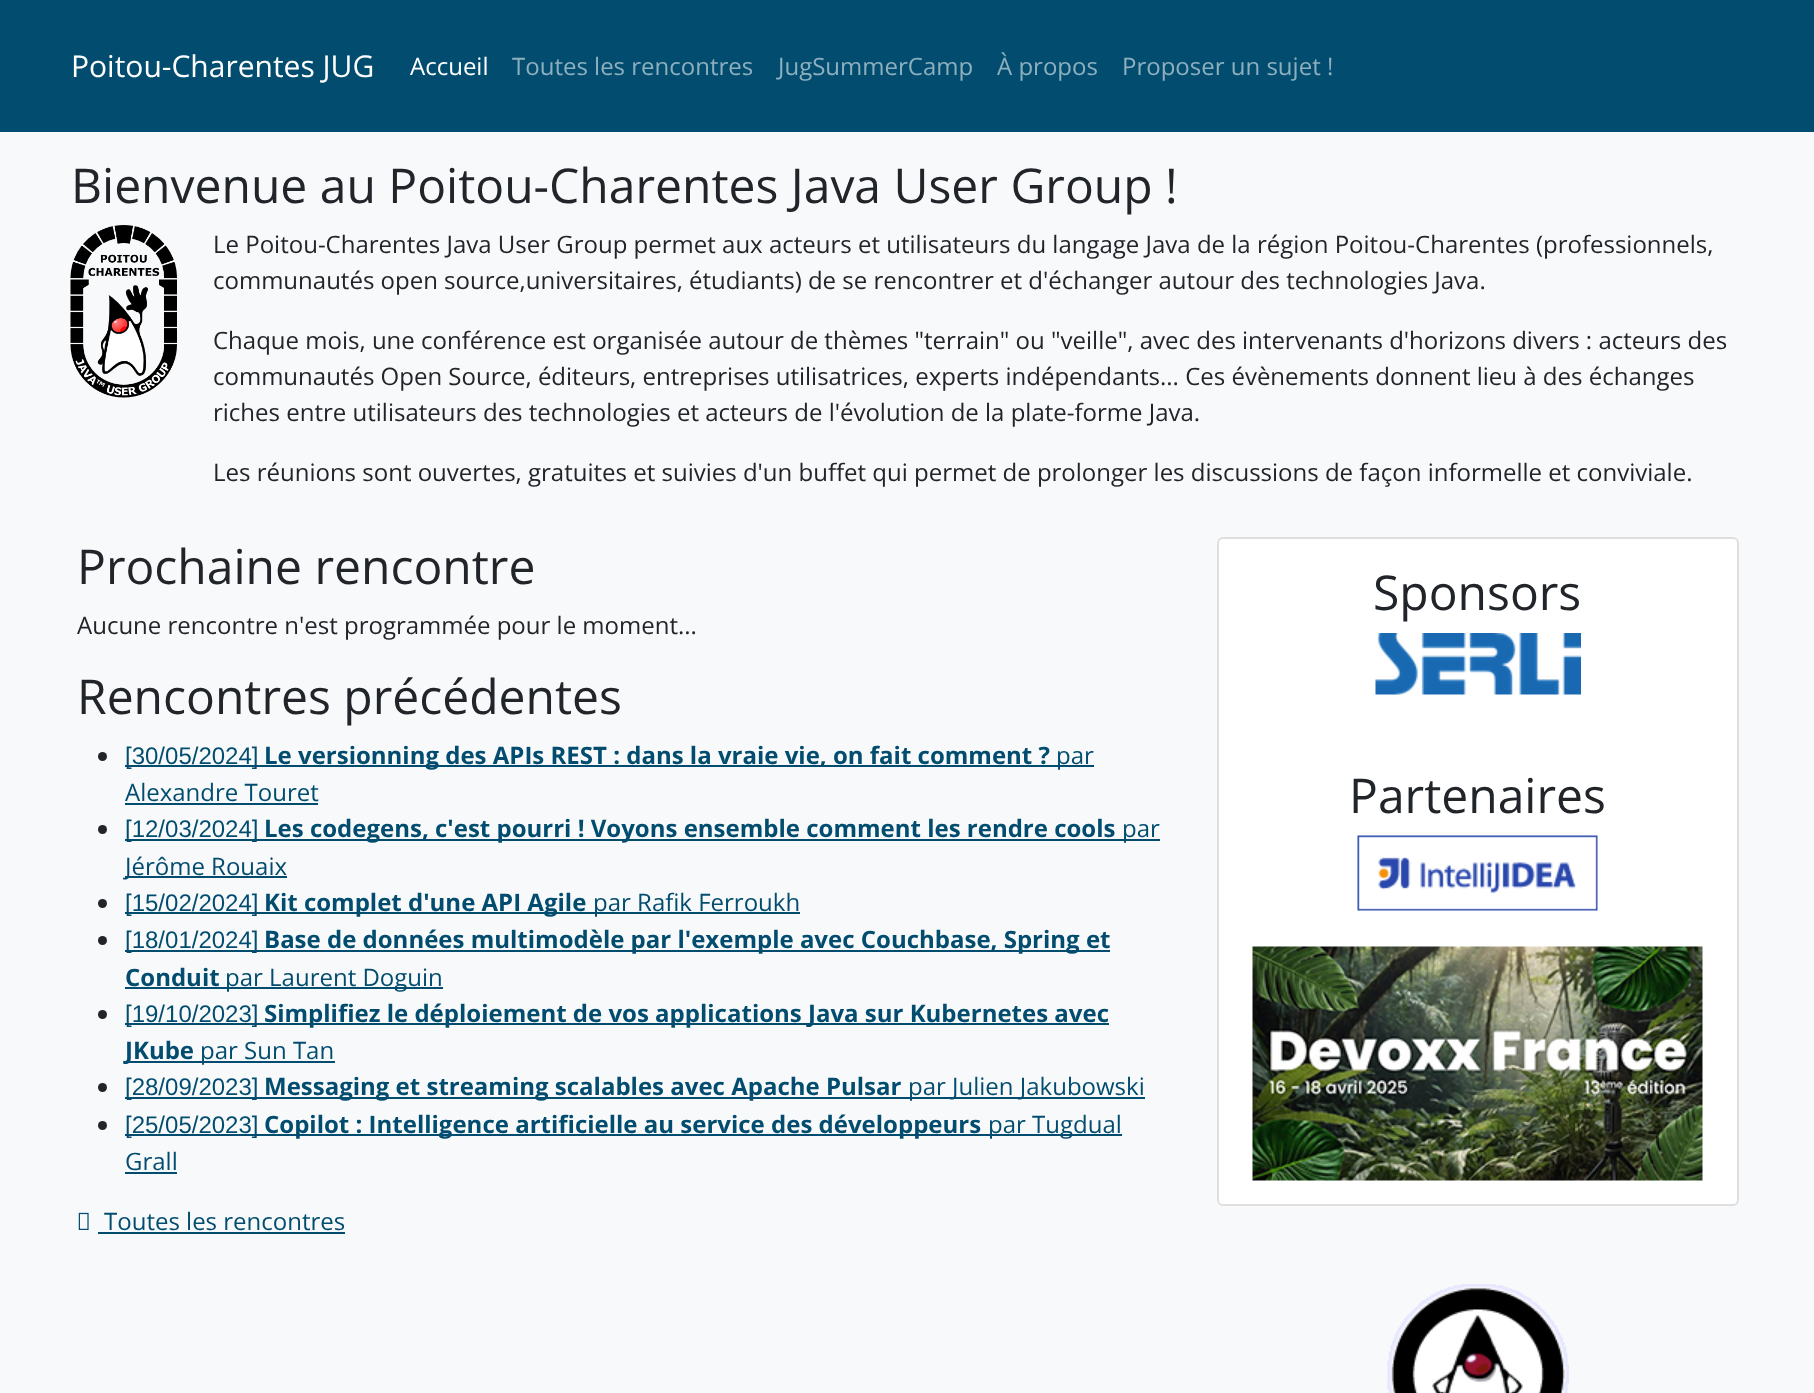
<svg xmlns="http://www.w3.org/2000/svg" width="1814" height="1393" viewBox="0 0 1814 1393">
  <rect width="100%" height="100%" fill="#f8f9fa"/>
  <rect x="0" y="0" width="1814" height="132" fill="#024d6f"/>
  <text x="71" y="77" font-family="Open Sans" font-size="30" fill="#ffffff">Poitou-Charentes JUG</text>
  <text x="410" y="75" font-family="Open Sans" font-size="24" fill="#ffffff">Accueil</text>
  <text x="512" y="75" font-family="Open Sans" font-size="24" fill="#8dafbe">Toutes les rencontres</text>
  <text x="778" y="75" font-family="Open Sans" font-size="24" fill="#8dafbe">JugSummerCamp</text>
  <text x="997" y="75" font-family="Open Sans" font-size="24" fill="#8dafbe">À propos</text>
  <text x="1122" y="75" font-family="Open Sans" font-size="24" fill="#8dafbe">Proposer un sujet !</text>
  <text x="71" y="203" font-family="Open Sans" font-size="48" fill="#212529">Bienvenue au Poitou-Charentes Java User Group !</text>
  <image x="70" y="225" width="107" height="173" href="img1.png"/>
  <text x="213" y="253" font-family="Open Sans" font-size="24" fill="#212529">Le Poitou-Charentes Java User Group permet aux acteurs et utilisateurs du langage Java de la région Poitou-Charentes (professionnels,</text>
  <text x="213" y="289" font-family="Open Sans" font-size="24" fill="#212529">communautés open source,universitaires, étudiants) de se rencontrer et d'échanger autour des technologies Java.</text>
  <text x="213" y="349" font-family="Open Sans" font-size="24" fill="#212529">Chaque mois, une conférence est organisée autour de thèmes "terrain" ou "veille", avec des intervenants d'horizons divers : acteurs des</text>
  <text x="213" y="385" font-family="Open Sans" font-size="24" fill="#212529">communautés Open Source, éditeurs, entreprises utilisatrices, experts indépendants... Ces évènements donnent lieu à des échanges</text>
  <text x="213" y="421" font-family="Open Sans" font-size="24" fill="#212529">riches entre utilisateurs des technologies et acteurs de l'évolution de la plate-forme Java.</text>
  <text x="213" y="481" font-family="Open Sans" font-size="24" fill="#212529">Les réunions sont ouvertes, gratuites et suivies d'un buffet qui permet de prolonger les discussions de façon informelle et conviviale.</text>
  <text x="77" y="584" font-family="Open Sans" font-size="48" fill="#212529">Prochaine rencontre</text>
  <text x="77" y="634" font-family="Open Sans" font-size="24" fill="#212529">Aucune rencontre n'est programmée pour le moment...</text>
  <text x="77" y="714" font-family="Open Sans" font-size="48" fill="#212529">Rencontres précédentes</text>
  <circle cx="102.5" cy="756.5" r="4.5" fill="#212529"/>
  <rect x="125" y="765" width="969" height="2" fill="#024d6f"/>
  <text x="125" y="764" font-family="Liberation Sans" font-size="24" fill="#024d6f">[30/05/2024]</text>
  <text x="264" y="764" font-family="Open Sans" font-size="24" font-weight="bold" fill="#024d6f">Le versionning des APIs REST : dans la vraie vie, on fait comment ?</text>
  <text x="1056" y="764" font-family="Open Sans" font-size="24" fill="#024d6f">par</text>
  <text x="125" y="801" font-family="Open Sans" font-size="24" fill="#024d6f">Alexandre Touret</text>
  <rect x="125" y="803" width="193" height="2" fill="#024d6f"/>
  <circle cx="102.5" cy="829.5" r="4.5" fill="#212529"/>
  <rect x="125" y="839" width="1035" height="2" fill="#024d6f"/>
  <text x="125" y="837" font-family="Liberation Sans" font-size="24" fill="#024d6f">[12/03/2024]</text>
  <text x="264" y="837" font-family="Open Sans" font-size="24" font-weight="bold" fill="#024d6f">Les codegens, c'est pourri ! Voyons ensemble comment les rendre cools</text>
  <text x="1122" y="837" font-family="Open Sans" font-size="24" fill="#024d6f">par</text>
  <rect x="125" y="876" width="162" height="2" fill="#024d6f"/>
  <text x="125" y="875" font-family="Open Sans" font-size="24" fill="#024d6f">Jérôme Rouaix</text>
  <circle cx="102.5" cy="903.5" r="4.5" fill="#212529"/>
  <rect x="125" y="912" width="675" height="2" fill="#024d6f"/>
  <text x="125" y="911" font-family="Liberation Sans" font-size="24" fill="#024d6f">[15/02/2024]</text>
  <text x="264" y="911" font-family="Open Sans" font-size="24" font-weight="bold" fill="#024d6f">Kit complet d'une API Agile</text>
  <text x="593" y="911" font-family="Open Sans" font-size="24" fill="#024d6f">par Rafik Ferroukh</text>
  <circle cx="102.5" cy="940.5" r="4.5" fill="#212529"/>
  <rect x="125" y="950" width="985" height="2" fill="#024d6f"/>
  <text x="125" y="948" font-family="Liberation Sans" font-size="24" fill="#024d6f">[18/01/2024]</text>
  <text x="264" y="948" font-family="Open Sans" font-size="24" font-weight="bold" fill="#024d6f">Base de données multimodèle par l'exemple avec Couchbase, Spring et</text>
  <text x="125" y="986" font-family="Open Sans" font-size="24" font-weight="bold" fill="#024d6f">Conduit</text>
  <rect x="125" y="987" width="318" height="2" fill="#024d6f"/>
  <text x="225" y="986" font-family="Open Sans" font-size="24" fill="#024d6f">par Laurent Doguin</text>
  <circle cx="102.5" cy="1014.5" r="4.5" fill="#212529"/>
  <rect x="125" y="1023" width="984" height="2" fill="#024d6f"/>
  <text x="125" y="1022" font-family="Liberation Sans" font-size="24" fill="#024d6f">[19/10/2023]</text>
  <text x="264" y="1022" font-family="Open Sans" font-size="24" font-weight="bold" fill="#024d6f">Simplifiez le déploiement de vos applications Java sur Kubernetes avec</text>
  <rect x="125" y="1061" width="210" height="2" fill="#024d6f"/>
  <text x="125" y="1059" font-family="Open Sans" font-size="24" font-weight="bold" fill="#024d6f">JKube</text>
  <text x="200" y="1059" font-family="Open Sans" font-size="24" fill="#024d6f">par Sun Tan</text>
  <circle cx="102.5" cy="1087.5" r="4.5" fill="#212529"/>
  <rect x="125" y="1097" width="1020" height="2" fill="#024d6f"/>
  <text x="125" y="1095" font-family="Liberation Sans" font-size="24" fill="#024d6f">[28/09/2023]</text>
  <text x="264" y="1095" font-family="Open Sans" font-size="24" font-weight="bold" fill="#024d6f">Messaging et streaming scalables avec Apache Pulsar</text>
  <text x="908" y="1095" font-family="Open Sans" font-size="24" fill="#024d6f">par Julien Jakubowski</text>
  <circle cx="102.5" cy="1125.5" r="4.5" fill="#212529"/>
  <rect x="125" y="1134" width="997" height="2" fill="#024d6f"/>
  <text x="125" y="1133" font-family="Liberation Sans" font-size="24" fill="#024d6f">[25/05/2023]</text>
  <text x="264" y="1133" font-family="Open Sans" font-size="24" font-weight="bold" fill="#024d6f">Copilot : Intelligence artificielle au service des développeurs</text>
  <text x="988" y="1133" font-family="Open Sans" font-size="24" fill="#024d6f">par Tugdual</text>
  <text x="125" y="1170" font-family="Open Sans" font-size="24" fill="#024d6f">Grall</text>
  <rect x="125" y="1172" width="52" height="2" fill="#024d6f"/>
  <image x="78" y="1212" width="11" height="18" href="img2.png"/>
  <text x="104" y="1230" font-family="Open Sans" font-size="24" fill="#024d6f">Toutes les rencontres</text>
  <rect x="98" y="1232" width="247" height="2" fill="#024d6f"/>
  <rect x="1218" y="538" width="520" height="667" rx="5" fill="#ffffff" stroke="#dfdfdf" stroke-width="2"/>
  <text x="1373" y="610" font-family="Open Sans" font-size="48" fill="#212529">Sponsors</text>
  <image x="1375" y="633" width="206" height="62" href="img3.png"/>
  <text x="1349" y="813" font-family="Open Sans" font-size="48" fill="#212529">Partenaires</text>
  <image x="1357" y="835" width="241" height="76" href="img4.png"/>
  <image x="1252" y="946" width="451" height="235" href="img5.png"/>
  <image x="1387" y="1284" width="182" height="109" href="img6.png"/>
</svg>
